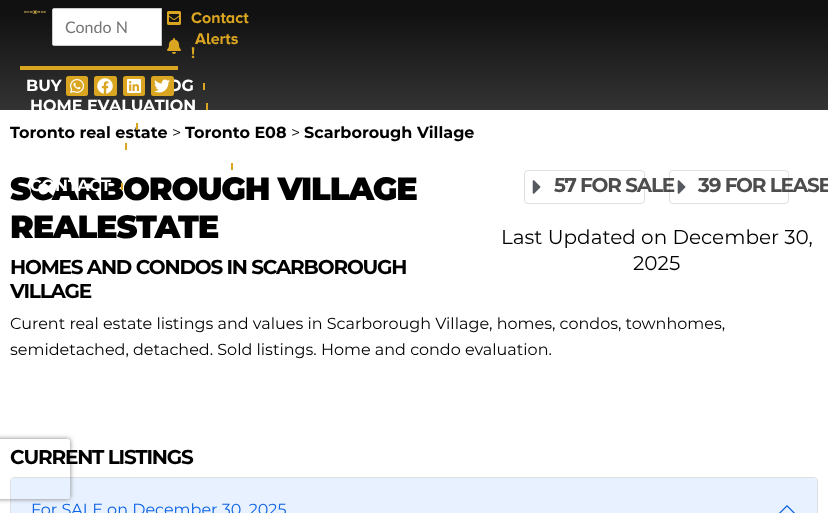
<svg xmlns="http://www.w3.org/2000/svg" width="828" height="513" viewBox="0 0 828 513">
  <defs>
    <linearGradient id="g1" gradientUnits="userSpaceOnUse" x1="524" y1="187" x2="645" y2="187"><stop offset="0" stop-color="#4d4d4d"/><stop offset="0.1" stop-color="#ffffff"/><stop offset="0.2" stop-color="#4d4d4d"/></linearGradient>
    <linearGradient id="g2" gradientUnits="userSpaceOnUse" x1="669" y1="187" x2="789" y2="187"><stop offset="0" stop-color="#4d4d4d"/><stop offset="0.1" stop-color="#ffffff"/><stop offset="0.2" stop-color="#4d4d4d"/></linearGradient>
    <linearGradient id="g3" gradientUnits="userSpaceOnUse" x1="414" y1="110" x2="414" y2="0"><stop offset="0" stop-color="#333333"/><stop offset="0.88" stop-color="#111111"/></linearGradient>
    <clipPath id="clip1"><path d="M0 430H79V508H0ZM-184 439H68C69 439 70 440 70 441V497C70 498 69 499 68 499H-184C-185 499-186 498-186 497V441C-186 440-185 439-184 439Z" clip-rule="evenodd"/></clipPath>
    <filter id="blur1" x="-50%" y="-200%" width="200%" height="500%"><feGaussianBlur stdDeviation="2.5"/></filter>
  </defs>
  <rect width="100%" height="100%" fill="#ffffff"/>
  <rect x="0" y="0" width="828" height="110" fill="url(#g3)"/>
  <image x="24" y="10" width="22" height="5" href="img1.png"/>
  <path d="M54 8.5H161.5V45.5H54C53 45.5 52.5 45 52.5 44V10C52.5 9 53 8.5 54 8.5Z" fill="#ffffff" stroke="#cccccc"/>
  <text x="65" y="33" font-family="Lato" font-size="16" fill="#757575">Condo N</text>
  <image x="167" y="11" width="14" height="14" href="img2.png"/>
  <text x="191" y="23" font-family="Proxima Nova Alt" font-size="16" font-weight="bold" fill="#daa520">Contact</text>
  <image x="167" y="38" width="14" height="16" href="img3.png"/>
  <text x="195" y="44" font-family="Proxima Nova Alt" font-size="16" font-weight="bold" fill="#daa520">Alerts</text>
  <text x="191" y="58" font-family="Proxima Nova Alt" font-size="16" font-weight="bold" fill="#daa520">!</text>
  <rect x="20" y="66" width="158" height="4" fill="#daa520"/>
  <rect x="66" y="76" width="22" height="20" rx="2.5" fill="#daa520"/>
  <image x="70" y="79" width="14" height="14" href="img4.png"/>
  <rect x="94" y="76" width="23" height="20" rx="2.5" fill="#daa520"/>
  <image x="97" y="78" width="16" height="16" href="img5.png"/>
  <rect x="123" y="76" width="22" height="20" rx="2.5" fill="#daa520"/>
  <image x="127" y="79" width="14" height="14" href="img6.png"/>
  <text x="168" y="91" font-family="Montserrat" font-size="16" font-weight="bold" fill="#ffffff">OG</text>
  <rect x="151" y="76" width="23" height="20" rx="2.5" fill="#daa520"/>
  <image x="154" y="79" width="16" height="14" href="img7.png"/>
  <text x="26" y="91" font-family="Montserrat" font-size="16" font-weight="bold" fill="#ffffff">BUY</text>
  <rect x="203" y="83" width="2" height="7" fill="#daa520"/>
  <text x="30" y="111" font-family="Montserrat" font-size="16" font-weight="bold" fill="#ffffff">HOME EVALUATION</text>
  <rect x="206" y="103" width="2" height="7" fill="#daa520"/>
  <text x="10" y="138" font-family="Montserrat" font-size="16" font-weight="bold" fill="#000000">Toronto real estate</text>
  <rect x="136" y="123" width="2" height="7" fill="#daa520"/>
  <rect x="125" y="143" width="2" height="7" fill="#daa520"/>
  <rect x="231" y="163" width="2" height="7" fill="#daa520"/>
  <text x="10" y="200" font-family="Montserrat" font-size="32" font-weight="900" letter-spacing="-1.2" fill="#000000">SCARBOROUGH VILLAGE</text>
  <text x="30" y="191" font-family="Montserrat" font-size="16" font-weight="bold" fill="#ffffff">CONTACT</text>
  <rect x="121" y="183" width="2" height="7" fill="#daa520"/>
  <text x="172" y="138" font-family="Montserrat" font-size="16" fill="#000000">&gt;</text>
  <text x="185" y="138" font-family="Montserrat" font-size="16" font-weight="bold" fill="#000000">Toronto E08</text>
  <text x="291" y="138" font-family="Montserrat" font-size="16" fill="#000000">&gt;</text>
  <text x="304" y="138" font-family="Montserrat" font-size="16" font-weight="bold" fill="#000000">Scarborough Village</text>
  <text x="10" y="238" font-family="Montserrat" font-size="32" font-weight="900" letter-spacing="-1.2" fill="#000000">REALESTATE</text>
  <text x="10" y="274" font-family="Montserrat" font-size="20" font-weight="bold" letter-spacing="-1.2" fill="#000000">HOMES AND CONDOS IN SCARBOROUGH</text>
  <text x="10" y="298" font-family="Montserrat" font-size="20" font-weight="bold" letter-spacing="-1.2" fill="#000000">VILLAGE</text>
  <rect x="524.5" y="170.5" width="120" height="33" rx="3.5" fill="none" stroke="#dfdfdf"/>
  <image x="532" y="180" width="9" height="14" href="img8.png"/>
  <text x="554" y="192" font-family="Montserrat" font-size="20" font-weight="bold" letter-spacing="-1.2" fill="url(#g1)">57 FOR SALE</text>
  <rect x="669.5" y="170.5" width="119" height="33" rx="3.5" fill="none" stroke="#000000" stroke-opacity="0.12"/>
  <image x="677" y="180" width="9" height="14" href="img8.png"/>
  <text x="698" y="192" font-family="Montserrat" font-size="20" font-weight="bold" letter-spacing="-1.2" fill="url(#g2)">39 FOR LEASE</text>
  <text x="501" y="244" font-family="Montserrat" font-size="20" fill="#000000">Last Updated on December 30,</text>
  <text x="633" y="270" font-family="Montserrat" font-size="20" fill="#000000">2025</text>
  <text x="10" y="329" font-family="Montserrat" font-size="16" fill="#000000">Curent real estate listings and values in Scarborough Village, homes, condos, townhomes,</text>
  <text x="10" y="355" font-family="Montserrat" font-size="16" fill="#000000">semidetached, detached. Sold listings. Home and condo evaluation.</text>
  <rect x="10.5" y="477.5" width="807" height="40" rx="3.5" fill="none" stroke="#dfdfdf"/>
  <path d="M14 478H814C815.5 478 817 479.5 817 481V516H11V481C11 479.5 12.5 478 14 478Z" fill="#e7f1ff"/>
  <g clip-path="url(#clip1)">
    <rect x="-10" y="439" width="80" height="60" rx="2" fill="#808080" filter="url(#blur1)"/>
  </g>
  <text x="10" y="464" font-family="Montserrat" font-size="20" font-weight="bold" letter-spacing="-1.2" fill="#000000">CURRENT LISTINGS</text>
  <text x="31" y="515" font-family="Montserrat" font-size="16" fill="#0c63e4">For SALE on December 30, 2025</text>
  <image x="779" y="505" width="16" height="8" href="img9.png"/>
</svg>
